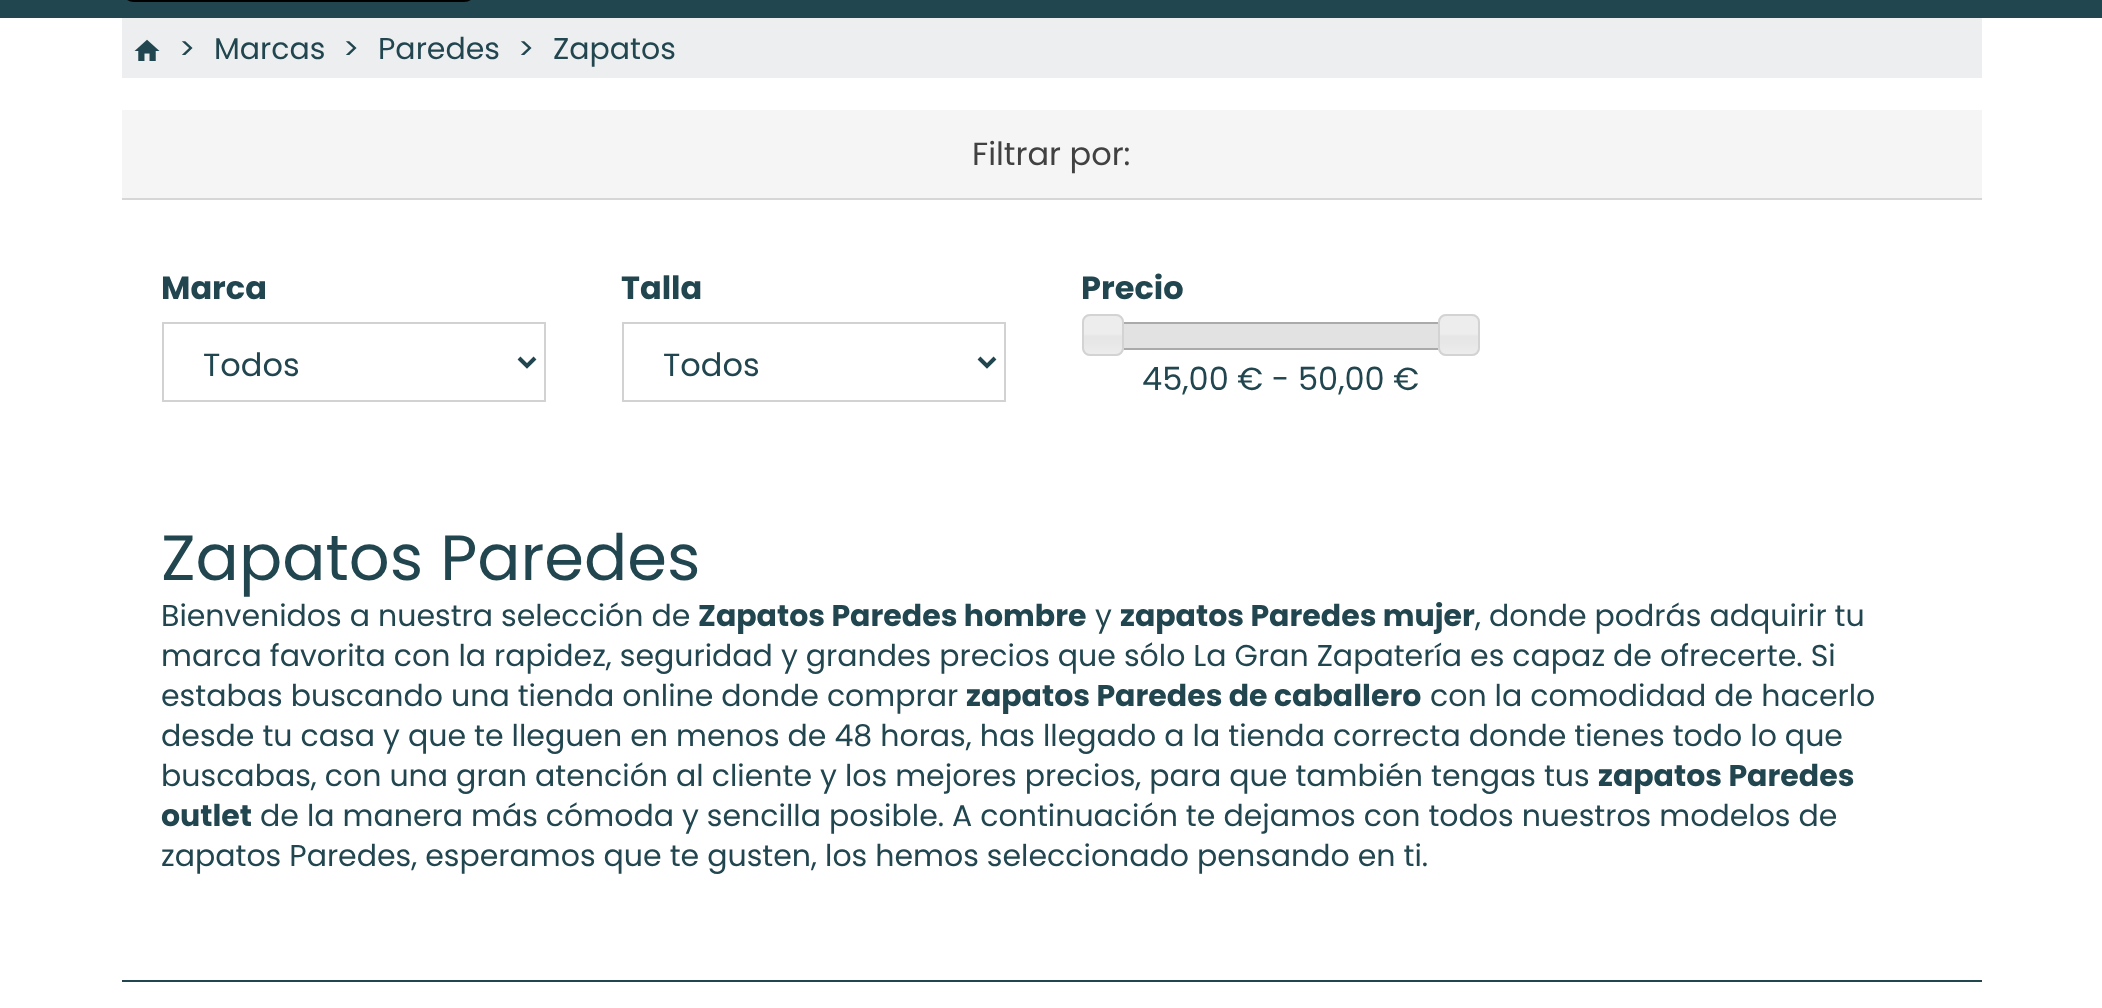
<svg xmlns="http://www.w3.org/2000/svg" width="2102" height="1008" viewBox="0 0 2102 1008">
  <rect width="100%" height="100%" fill="#ffffff"/>
  <rect x="0" y="0" width="2102" height="18" fill="#21464f"/>
  <rect x="125" y="-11" width="348" height="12" rx="9" fill="none" stroke="#000000" stroke-width="2"/>
  <rect x="122" y="18" width="1860" height="60" fill="#eceeef"/>
  <image x="134" y="39" width="26" height="22" href="img1.png"/>
  <text x="179" y="59" font-family="Poppins" font-size="30" fill="#21464f">&gt;</text>
  <text x="214" y="59" font-family="Poppins" font-size="30" fill="#21464f">Marcas</text>
  <text x="343" y="59" font-family="Poppins" font-size="30" fill="#21464f">&gt;</text>
  <text x="378" y="59" font-family="Poppins" font-size="30" fill="#21464f">Paredes</text>
  <text x="518" y="59" font-family="Poppins" font-size="30" fill="#21464f">&gt;</text>
  <text x="553" y="59" font-family="Poppins" font-size="30" fill="#21464f">Zapatos</text>
  <rect x="122" y="110" width="1860" height="88" fill="#f5f5f5"/>
  <rect x="122" y="198" width="1860" height="2" fill="#d6d6d6"/>
  <text x="972" y="165" font-family="Poppins" font-size="32" fill="#414141">Filtrar por:</text>
  <text x="161" y="299" font-family="Poppins" font-size="32" font-weight="bold" fill="#21464f">Marca</text>
  <rect x="163" y="323" width="382" height="78" fill="none" stroke="#d2d2d2" stroke-width="2"/>
  <path d="M519 358L527 366L535 358" fill="none" stroke="#21464f" stroke-width="4"/>
  <text x="203" y="376" font-family="Poppins" font-size="32" fill="#21464f">Todos</text>
  <text x="621" y="299" font-family="Poppins" font-size="32" font-weight="bold" fill="#21464f">Talla</text>
  <rect x="623" y="323" width="382" height="78" fill="none" stroke="#d2d2d2" stroke-width="2"/>
  <path d="M979 358L987 366L995 358" fill="none" stroke="#21464f" stroke-width="4"/>
  <text x="663" y="376" font-family="Poppins" font-size="32" fill="#21464f">Todos</text>
  <text x="1081" y="299" font-family="Poppins" font-size="32" font-weight="bold" fill="#21464f">Precio</text>
  <rect x="1103" y="323" width="358" height="26" fill="none" stroke="#aaaaaa" stroke-width="2"/>
  <image x="1082" y="314" width="42" height="42" href="img2.png"/>
  <rect x="1083" y="315" width="40" height="40" rx="7" fill="none" stroke="#d3d3d3" stroke-width="2"/>
  <image x="1124" y="324" width="314" height="24" href="img3.png"/>
  <image x="1438" y="314" width="42" height="42" href="img4.png"/>
  <rect x="1439" y="315" width="40" height="40" rx="7" fill="none" stroke="#d3d3d3" stroke-width="2"/>
  <text x="1142" y="390" font-family="Poppins" font-size="32" fill="#21464f">45,00 € - 50,00 €</text>
  <text x="161" y="580" font-family="Poppins" font-size="64" fill="#21464f">Zapatos Paredes</text>
  <text x="161" y="626" font-family="Poppins" font-size="30" fill="#21464f">Bienvenidos a nuestra selección de</text>
  <text x="698" y="626" font-family="Poppins" font-size="30" font-weight="bold" fill="#21464f">Zapatos Paredes hombre</text>
  <text x="1095" y="626" font-family="Poppins" font-size="30" fill="#21464f">y</text>
  <text x="1120" y="626" font-family="Poppins" font-size="30" font-weight="bold" fill="#21464f">zapatos Paredes mujer</text>
  <text x="1475" y="626" font-family="Poppins" font-size="30" fill="#21464f">, donde podrás adquirir tu</text>
  <text x="161" y="666" font-family="Poppins" font-size="30" fill="#21464f">marca favorita con la rapidez, seguridad y grandes precios que sólo La Gran Zapatería es capaz de ofrecerte. Si</text>
  <text x="161" y="706" font-family="Poppins" font-size="30" fill="#21464f">estabas buscando una tienda online donde comprar</text>
  <text x="966" y="706" font-family="Poppins" font-size="30" font-weight="bold" fill="#21464f">zapatos Paredes de caballero</text>
  <text x="1430" y="706" font-family="Poppins" font-size="30" fill="#21464f">con la comodidad de hacerlo</text>
  <text x="161" y="746" font-family="Poppins" font-size="30" fill="#21464f">desde tu casa y que te lleguen en menos de 48 horas, has llegado a la tienda correcta donde tienes todo lo que</text>
  <text x="161" y="786" font-family="Poppins" font-size="30" fill="#21464f">buscabas, con una gran atención al cliente y los mejores precios, para que también tengas tus</text>
  <text x="1598" y="786" font-family="Poppins" font-size="30" font-weight="bold" fill="#21464f">zapatos Paredes</text>
  <text x="161" y="826" font-family="Poppins" font-size="30" font-weight="bold" fill="#21464f">outlet</text>
  <text x="260" y="826" font-family="Poppins" font-size="30" fill="#21464f">de la manera más cómoda y sencilla posible. A continuación te dejamos con todos nuestros modelos de</text>
  <text x="161" y="866" font-family="Poppins" font-size="30" fill="#21464f">zapatos Paredes, esperamos que te gusten, los hemos seleccionado pensando en ti.</text>
  <rect x="122" y="980" width="1860" height="2" fill="#21464f"/>
</svg>
